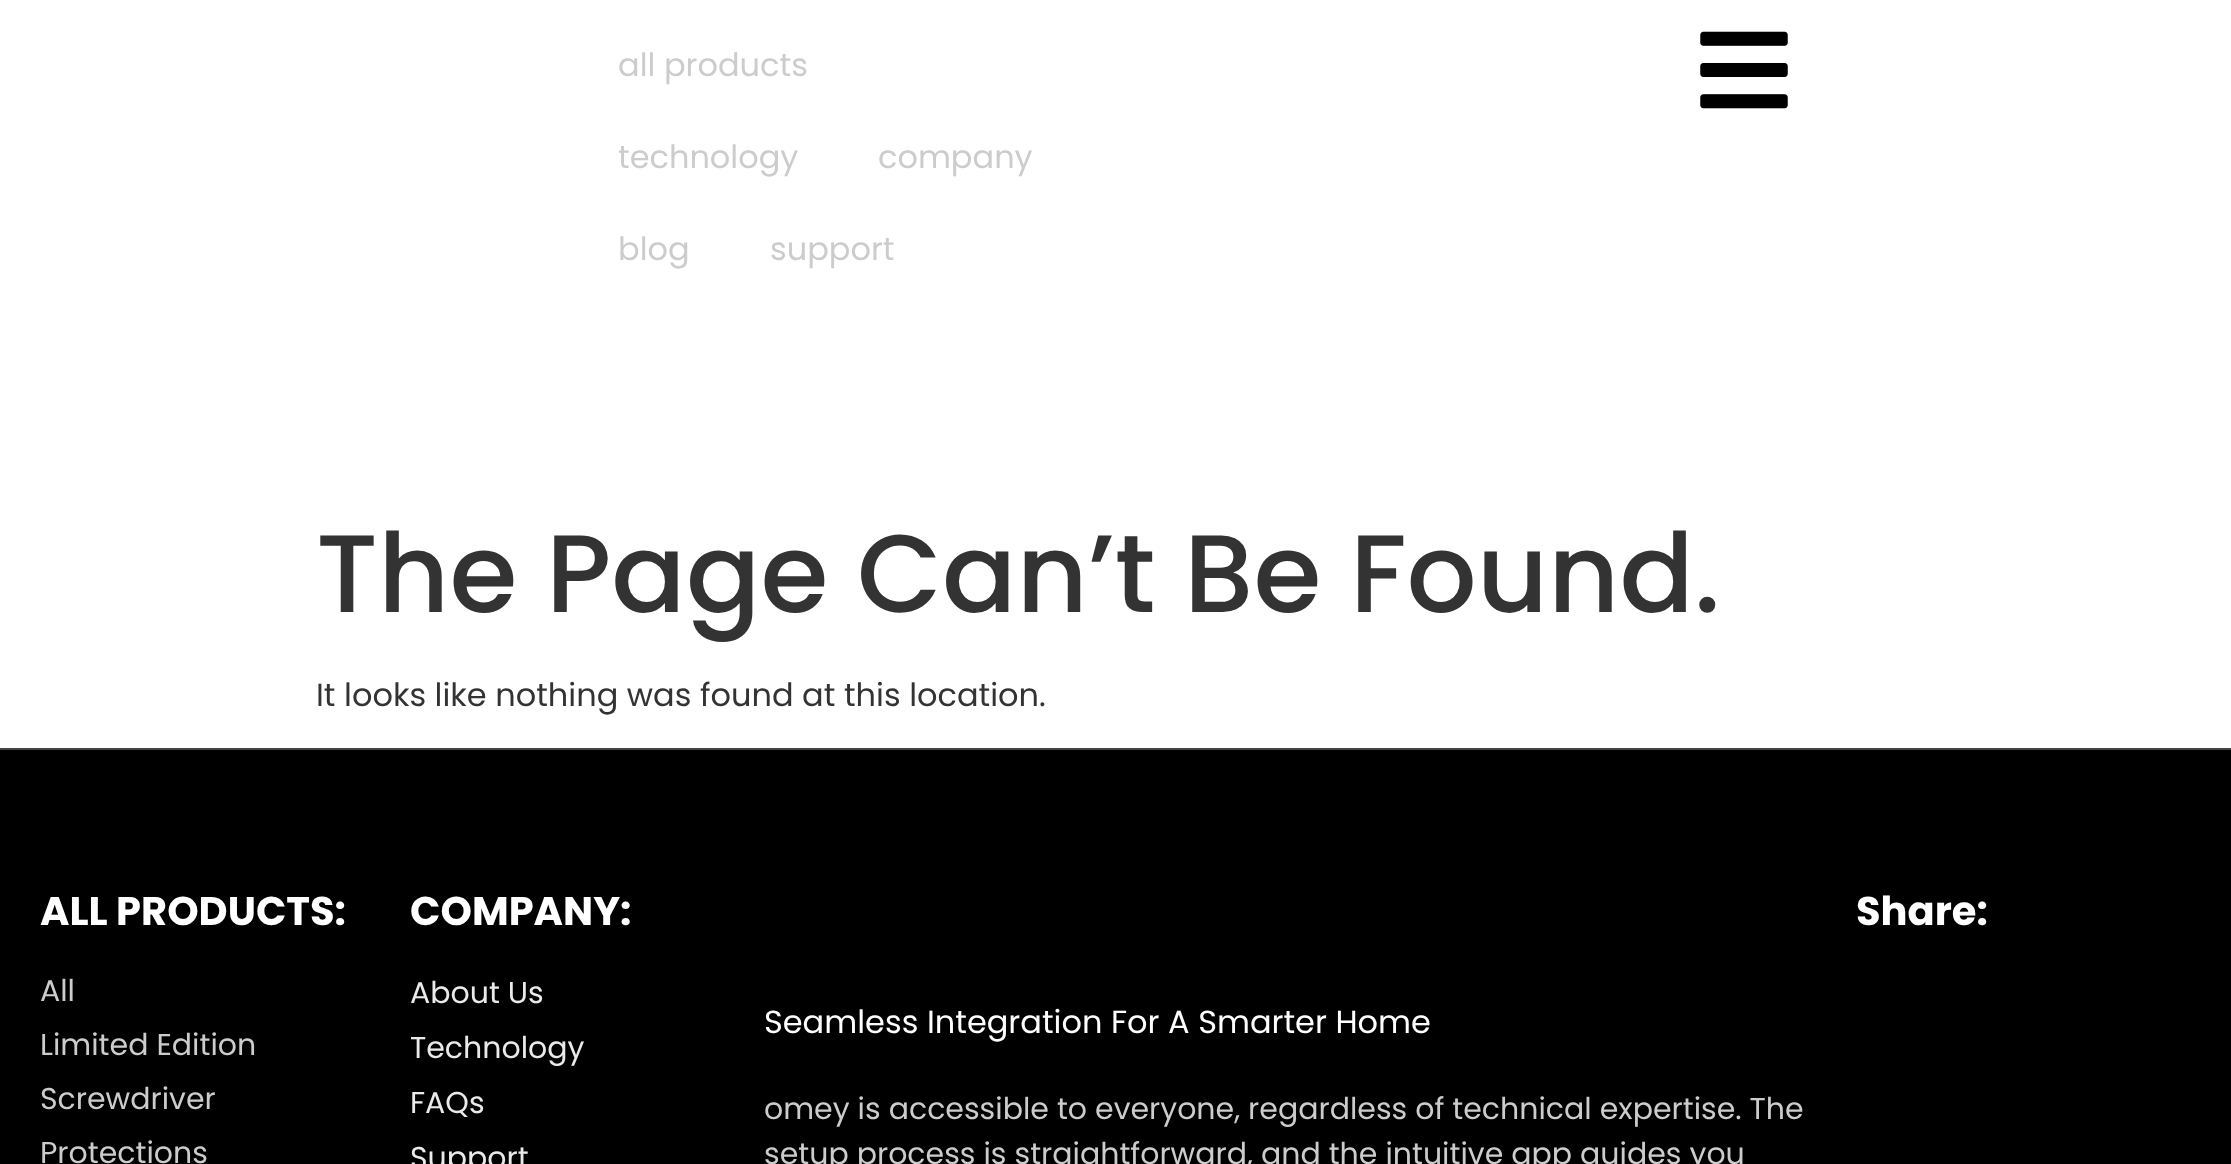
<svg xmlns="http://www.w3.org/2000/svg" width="2231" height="1164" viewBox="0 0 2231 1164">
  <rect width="100%" height="100%" fill="#ffffff"/>
  <text x="618" y="76" font-family="Poppins" font-size="32" fill="#cccccc">all products</text>
  <text x="618" y="168" font-family="Poppins" font-size="32" fill="#cccccc">technology</text>
  <text x="878" y="168" font-family="Poppins" font-size="32" fill="#cccccc">company</text>
  <text x="618" y="260" font-family="Poppins" font-size="32" fill="#cccccc">blog</text>
  <text x="770" y="260" font-family="Poppins" font-size="32" fill="#cccccc">support</text>
  <image x="1700" y="31" width="88" height="78" href="img1.png"/>
  <text x="316" y="612" font-family="Poppins" font-size="110" font-weight="500" fill="#333333">The Page Can’t Be Found.</text>
  <text x="316" y="706" font-family="Poppins" font-size="32" fill="#333333">It looks like nothing was found at this location.</text>
  <rect x="0" y="750" width="2231" height="414" fill="#000000"/>
  <rect x="0" y="748" width="2231" height="2" fill="#454545"/>
  <text x="40" y="925" font-family="Poppins" font-size="40" font-weight="bold" fill="#ffffff">ALL PRODUCTS:</text>
  <text x="40" y="1001" font-family="Poppins" font-size="30" fill="#cccccc">All</text>
  <text x="40" y="1055" font-family="Poppins" font-size="30" fill="#cccccc">Limited Edition</text>
  <text x="40" y="1109" font-family="Poppins" font-size="30" fill="#cccccc">Screwdriver</text>
  <text x="40" y="1163" font-family="Poppins" font-size="30" fill="#cccccc">Protections</text>
  <text x="410" y="925" font-family="Poppins" font-size="40" font-weight="bold" fill="#ffffff">COMPANY:</text>
  <text x="410" y="1003" font-family="Poppins" font-size="30" fill="#eaeaea">About Us</text>
  <text x="410" y="1058" font-family="Poppins" font-size="30" fill="#eaeaea">Technology</text>
  <text x="410" y="1113" font-family="Poppins" font-size="30" fill="#eaeaea">FAQs</text>
  <text x="410" y="1168" font-family="Poppins" font-size="30" fill="#eaeaea">Support</text>
  <text x="764" y="1033" font-family="Poppins" font-size="32" fill="#ffffff">Seamless Integration For A Smarter Home</text>
  <text x="764" y="1119" font-family="Poppins" font-size="30" fill="#cccccc">omey is accessible to everyone, regardless of technical expertise. The</text>
  <text x="764" y="1164" font-family="Poppins" font-size="30" fill="#cccccc">setup process is straightforward, and the intuitive app guides you</text>
  <text x="1856" y="925" font-family="Poppins" font-size="40" font-weight="bold" fill="#ffffff">Share:</text>
</svg>
